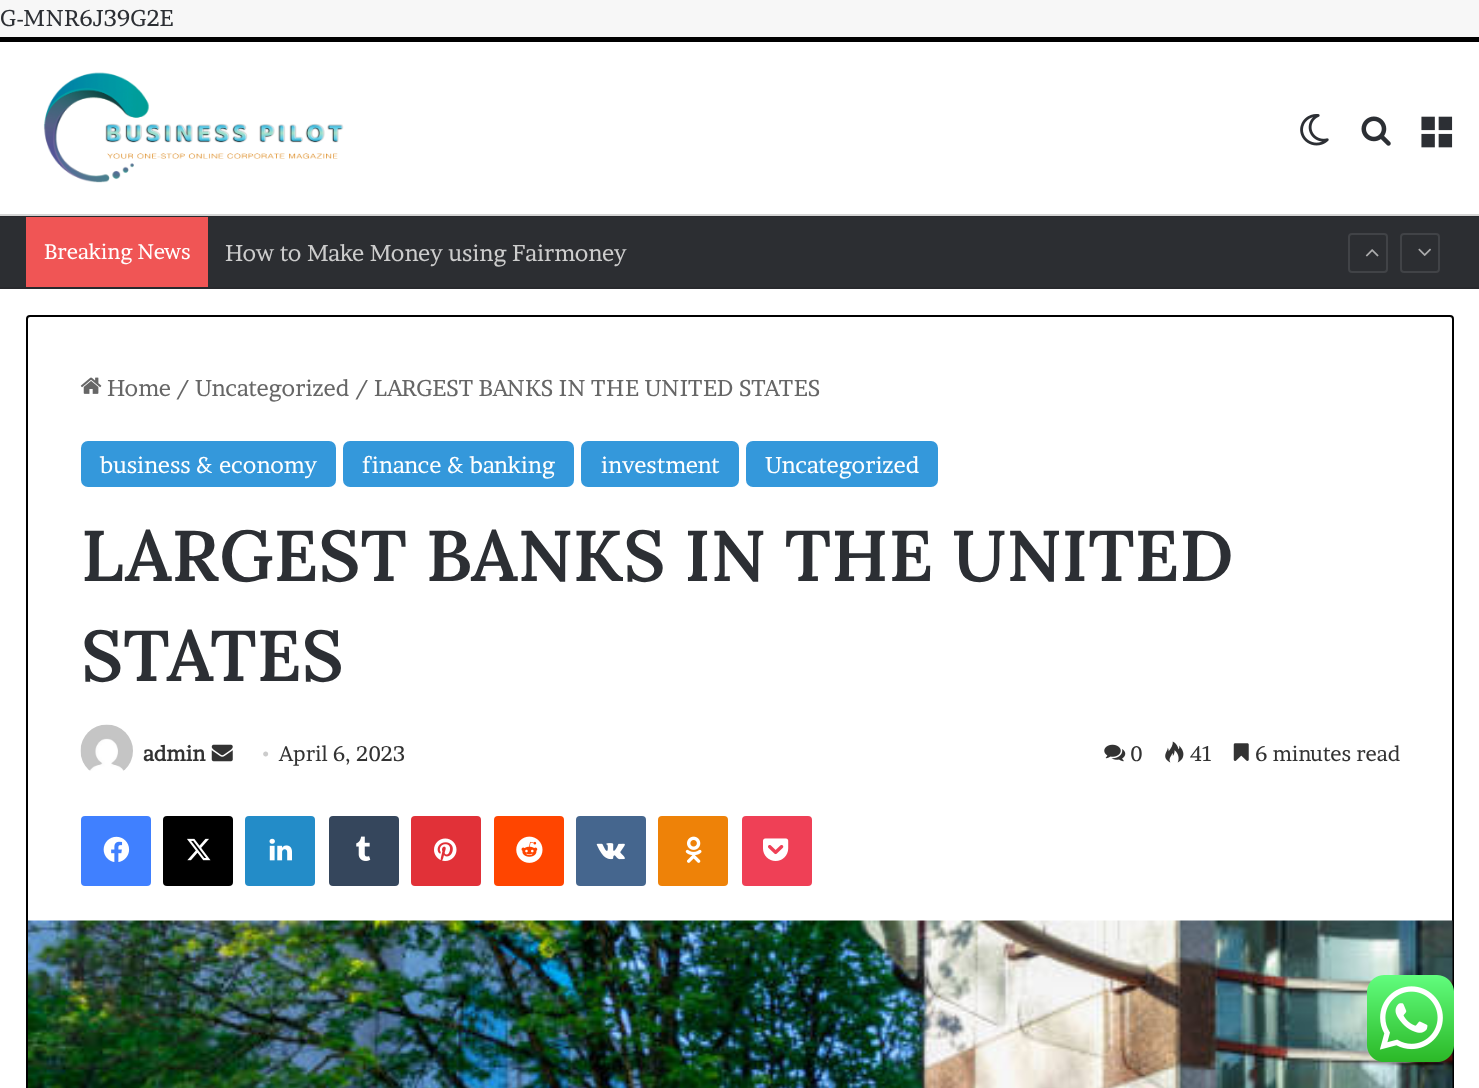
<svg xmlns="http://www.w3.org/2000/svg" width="1479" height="1088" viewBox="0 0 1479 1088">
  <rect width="100%" height="100%" fill="#f7f7f7"/>
  <text x="0" y="26" font-family="Brawler" font-size="22.75" fill="#2c2f34">G-MNR6J39G2E</text>
  <rect x="0" y="42" width="1479" height="1046" fill="#ffffff"/>
  <rect x="0" y="37" width="1479" height="5" fill="#000000"/>
  <rect x="0" y="214" width="1479" height="2" fill="#d5d5d5"/>
  <image x="43" y="72" width="301" height="111" href="img1.png"/>
  <image x="1300" y="114" width="29" height="32" href="img2.png"/>
  <image x="1361" y="116" width="30" height="30" href="img3.png"/>
  <image x="1421" y="116" width="32" height="32" href="img4.png"/>
  <rect x="0" y="217" width="1479" height="70" fill="#2c2e32"/>
  <rect x="0" y="216" width="1479" height="1" fill="#28292d"/>
  <rect x="0" y="287" width="1479" height="2" fill="#28292d"/>
  <rect x="26" y="217" width="182" height="70" fill="#f05555"/>
  <text x="44" y="259" font-family="Brawler" font-size="21" fill="#ffffff">Breaking News</text>
  <text x="225" y="261" font-family="Brawler" font-size="22.75" fill="#cccccc">How to Make Money using Fairmoney</text>
  <rect x="1349" y="234" width="38" height="38" rx="3" fill="none" stroke="#414347" stroke-width="2"/>
  <image x="1365" y="249" width="14" height="8" href="img5.png"/>
  <rect x="1401" y="234" width="38" height="38" rx="3" fill="none" stroke="#414347" stroke-width="2"/>
  <image x="1418" y="248" width="13" height="8" href="img6.png"/>
  <rect x="27" y="316" width="1426" height="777" rx="3" fill="none" stroke="#000000" stroke-width="2"/>
  <image x="80" y="377" width="22" height="17" href="img7.png"/>
  <text x="107" y="396" font-family="Brawler" font-size="22.75" fill="#666666">Home</text>
  <text x="176" y="396" font-family="Brawler" font-size="22.75" fill="#666666">/</text>
  <text x="195" y="396" font-family="Brawler" font-size="22.75" fill="#666666">Uncategorized</text>
  <text x="355" y="396" font-family="Brawler" font-size="22.75" fill="#666666">/</text>
  <text x="374" y="396" font-family="Brawler" font-size="22.75" fill="#666666">LARGEST BANKS IN THE UNITED STATES</text>
  <rect x="81" y="441" width="255" height="46" rx="7" fill="#3498db"/>
  <text x="100" y="473" font-family="Brawler" font-size="22.75" fill="#ffffff">business &amp; economy</text>
  <rect x="343" y="441" width="231" height="46" rx="7" fill="#3498db"/>
  <text x="362" y="473" font-family="Brawler" font-size="22.75" fill="#ffffff">finance &amp; banking</text>
  <rect x="581" y="441" width="158" height="46" rx="7" fill="#3498db"/>
  <text x="601" y="473" font-family="Brawler" font-size="22.75" fill="#ffffff">investment</text>
  <rect x="746" y="441" width="192" height="46" rx="7" fill="#3498db"/>
  <text x="765" y="473" font-family="Brawler" font-size="22.75" fill="#ffffff">Uncategorized</text>
  <text x="81" y="581" font-family="Lora" font-size="71.75" font-weight="600" fill="#2c2f34">LARGEST BANKS IN THE UNITED</text>
  <text x="81" y="681" font-family="Lora" font-size="71.75" font-weight="600" fill="#2c2f34">STATES</text>
  <image x="80" y="724" width="53" height="47" href="img8.png"/>
  <text x="143" y="761" font-family="Brawler" font-size="21" font-weight="bold" fill="#333333">admin</text>
  <image x="211" y="744" width="22" height="18" href="img9.png"/>
  <text x="262" y="761" font-family="Liberation Serif" font-size="21" fill="#cccccc">•</text>
  <text x="279" y="761" font-family="Brawler" font-size="21" fill="#333333">April 6, 2023</text>
  <image x="1104" y="744" width="22" height="18" href="img10.png"/>
  <text x="1130" y="761" font-family="Brawler" font-size="21" fill="#333333">0</text>
  <image x="1165" y="741" width="19" height="22" href="img11.png"/>
  <text x="1190" y="761" font-family="Brawler" font-size="21" fill="#333333">41</text>
  <image x="1233" y="743" width="16" height="18" href="img12.png"/>
  <text x="1255" y="761" font-family="Brawler" font-size="21" fill="#333333">6 minutes read</text>
  <rect x="81" y="816" width="70" height="70" rx="4" fill="#4080ff"/>
  <image x="103" y="836" width="27" height="26" href="img13.png"/>
  <rect x="163" y="816" width="70" height="70" rx="4" fill="#000000"/>
  <image x="187" y="838" width="24" height="23" href="img14.png"/>
  <rect x="245" y="816" width="70" height="70" rx="4" fill="#238cc8"/>
  <image x="269" y="838" width="23" height="23" href="img15.png"/>
  <rect x="329" y="816" width="70" height="70" rx="4" fill="#35465c"/>
  <image x="356" y="836" width="15" height="25" href="img16.png"/>
  <rect x="411" y="816" width="70" height="70" rx="4" fill="#e13138"/>
  <image x="434" y="838" width="23" height="23" href="img17.png"/>
  <rect x="494" y="816" width="70" height="70" rx="4" fill="#ff4500"/>
  <image x="516" y="836" width="27" height="27" href="img18.png"/>
  <rect x="576" y="816" width="70" height="70" rx="4" fill="#45668e"/>
  <image x="596" y="843" width="29" height="17" href="img19.png"/>
  <rect x="658" y="816" width="70" height="70" rx="4" fill="#ee8208"/>
  <image x="685" y="836" width="17" height="27" href="img20.png"/>
  <rect x="742" y="816" width="70" height="70" rx="4" fill="#ef4056"/>
  <image x="763" y="838" width="26" height="23" href="img21.png"/>
  <image x="28" y="920" width="1425" height="168" href="img22.png"/>
  <image x="1367" y="975" width="87" height="87" href="img23.png"/>
</svg>
